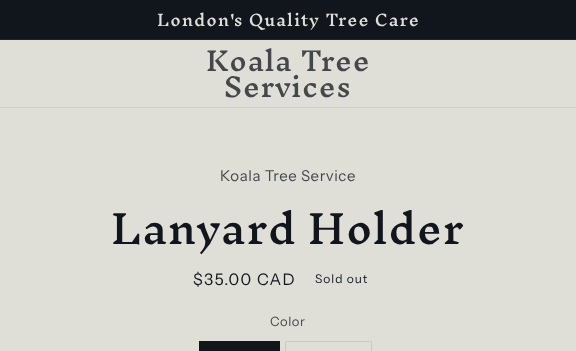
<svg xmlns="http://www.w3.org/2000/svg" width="576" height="351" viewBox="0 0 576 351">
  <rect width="100%" height="100%" fill="#dfdfd8"/>
  <rect x="0" y="0" width="576" height="39" fill="#11151c"/>
  <rect x="0" y="39" width="576" height="1" fill="#21252b"/>
  <text x="157" y="26" font-family="Inknut Antiqua" font-size="15.6" font-weight="500" letter-spacing="1" fill="#dfdfd8">London's Quality Tree Care</text>
  <rect x="0" y="107" width="576" height="1" fill="#cfcfc9"/>
  <text x="206" y="71" font-family="Inknut Antiqua" font-size="26" font-weight="500" letter-spacing="0.75" fill="#45484b">Koala Tree</text>
  <text x="224" y="97" font-family="Inknut Antiqua" font-size="26" font-weight="500" letter-spacing="0.75" fill="#45484b">Services</text>
  <text x="220" y="181" font-family="Instrument Sans" font-size="15" letter-spacing="0.6" fill="#45484b">Koala Tree Service</text>
  <text x="111" y="244" font-family="Inknut Antiqua" font-size="39" font-weight="500" letter-spacing="0.75" fill="#11151c">Lanyard Holder</text>
  <text x="193" y="285" font-family="Instrument Sans" font-size="16" letter-spacing="1.25" fill="#11151c">$35.00 CAD</text>
  <text x="315" y="283" font-family="Instrument Sans" font-size="12" letter-spacing="1" fill="#11151c">Sold out</text>
  <text x="270" y="326" font-family="Instrument Sans" font-size="13" letter-spacing="0.5" fill="#45484b">Color</text>
  <rect x="199" y="341" width="81" height="10" fill="#11151c"/>
  <rect x="285.5" y="341.5" width="86" height="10" fill="none" stroke="#cacbc5"/>
</svg>
